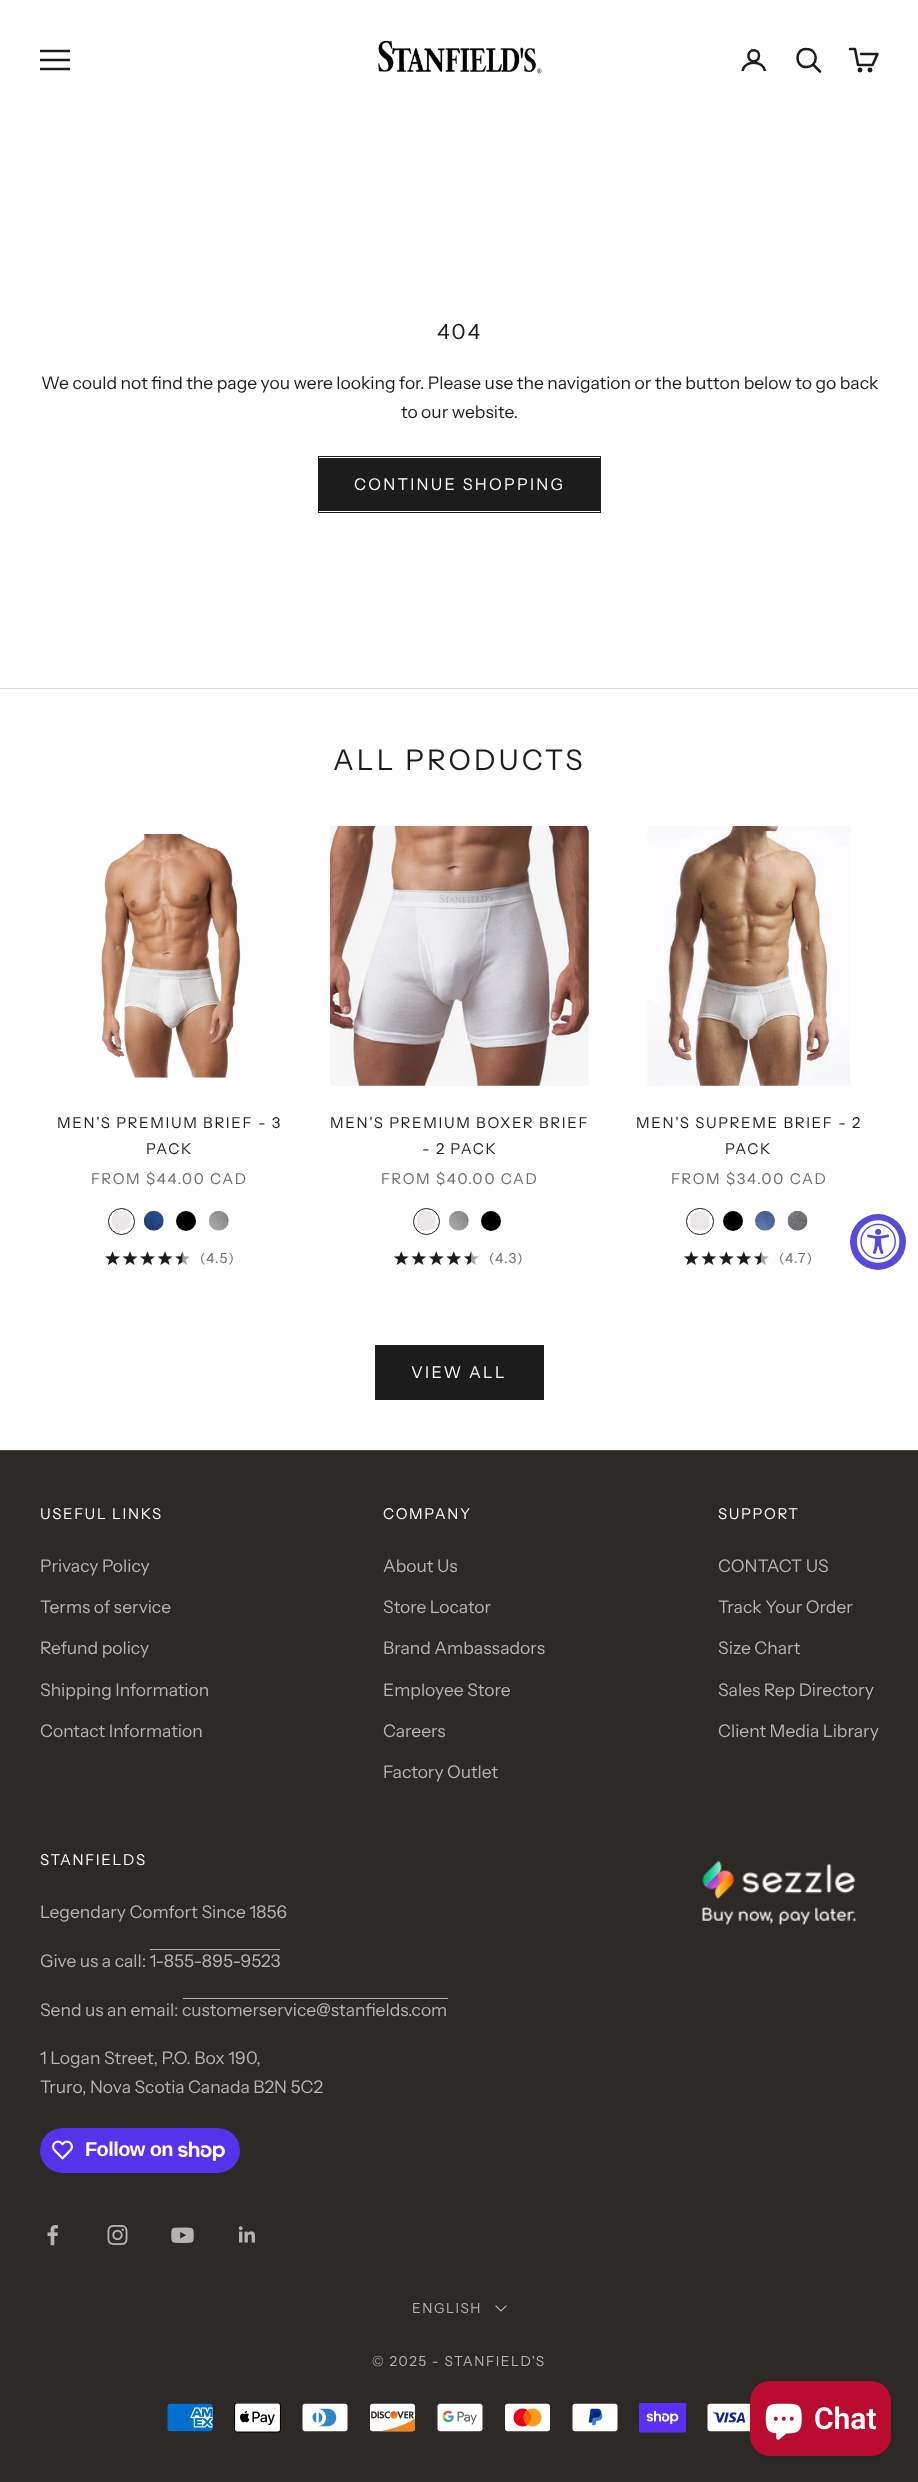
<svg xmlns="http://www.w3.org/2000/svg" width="918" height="2482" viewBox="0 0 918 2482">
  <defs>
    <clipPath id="clip1"><rect x="40" y="45" width="30" height="30"/></clipPath>
    <filter id="blur1" x="-50%" y="-200%" width="200%" height="500%"><feGaussianBlur stdDeviation="3"/></filter>
  </defs>
  <rect width="100%" height="100%" fill="#ffffff"/>
  <g clip-path="url(#clip1)">
    <path d="M41 69H69M41 60H69M41 51H69" fill="none" stroke="#1c1c1c" stroke-width="2.5" stroke-linecap="square"/>
  </g>
  <image x="378" y="40" width="164" height="34" href="img1.png"/>
  <path d="M759 56C758.5 64 747.5 62.5 748.5 55C749.5 48 759.5 49 759 56Z" fill="none" stroke="#1c1c1c" stroke-width="2.5" stroke-linecap="round" stroke-linejoin="round"/>
  <path d="M742.5 71C744.5 60 763 60 765 71" fill="none" stroke="#1c1c1c" stroke-width="2.5"/>
  <path d="M806.5 49C794.5 48.5 794.5 67.5 806.5 67C819 66.5 818.5 49 806.5 49Z" fill="none" stroke="#1c1c1c" stroke-width="2.5"/>
  <path d="M813.5 65L820 71.5" fill="none" stroke="#1c1c1c" stroke-width="2.5" stroke-linecap="round"/>
  <path d="M861 54H877.5L872.5 65H858L855 49H850" fill="none" stroke="#1c1c1c" stroke-width="2.5" stroke-linecap="round" stroke-linejoin="round"/>
  <circle cx="860" cy="70" r="1.2" fill="none" stroke="#1c1c1c" stroke-width="2.5"/>
  <circle cx="870" cy="70" r="1.2" fill="none" stroke="#1c1c1c" stroke-width="2.5"/>
  <text x="437" y="339" font-family="Instrument Sans" font-size="21" letter-spacing="2" fill="#1c1c1c">404</text>
  <text x="41" y="389" font-family="Instrument Sans" font-size="17.5" fill="#1c1c1c">We could not find the page you were looking for. Please use the navigation or the button below to go back</text>
  <text x="401" y="418" font-family="Instrument Sans" font-size="17.5" fill="#1c1c1c">to our website.</text>
  <rect x="319" y="458" width="281" height="53" fill="#1c1c1c"/>
  <rect x="318.5" y="456.5" width="282" height="56" fill="none" stroke="#1c1c1c"/>
  <text x="354" y="490" font-family="Instrument Sans" font-size="16.25" letter-spacing="2.25" fill="#ffffff">CONTINUE SHOPPING</text>
  <rect x="0" y="688" width="918" height="1" fill="#dddddd"/>
  <text x="333" y="770" font-family="Instrument Sans" font-size="28.5" letter-spacing="3.1" fill="#1c1c1c">ALL PRODUCTS</text>
  <image x="101" y="833" width="140" height="245" href="img2.png"/>
  <text x="57" y="1128" font-family="Instrument Sans" font-size="15" letter-spacing="1.65" fill="#1c1c1c">MEN'S PREMIUM BRIEF - 3</text>
  <text x="146" y="1154" font-family="Instrument Sans" font-size="15" letter-spacing="1.65" fill="#1c1c1c">PACK</text>
  <text x="91" y="1184" font-family="Instrument Sans" font-size="15" letter-spacing="1.65" fill="#6b6b6b">FROM $44.00 CAD</text>
  <image x="111" y="1211" width="20" height="20" href="img3.png"/>
  <circle cx="121.5" cy="1221.5" r="13" fill="none" stroke="#1c1c1c"/>
  <image x="143" y="1210" width="21" height="21" href="img4.png"/>
  <circle cx="186" cy="1221" r="10" fill="#000000"/>
  <image x="208" y="1210" width="21" height="21" href="img5.png"/>
  <image x="105" y="1251" width="15" height="14" href="img6.png"/>
  <image x="123" y="1251" width="15" height="14" href="img7.png"/>
  <image x="140" y="1251" width="15" height="14" href="img6.png"/>
  <image x="158" y="1251" width="15" height="14" href="img7.png"/>
  <image x="175" y="1251" width="15" height="14" href="img8.png"/>
  <text x="200" y="1263" font-family="Instrument Sans" font-size="13.75" letter-spacing="1.5" fill="#6b6b6b">(4.5)</text>
  <image x="330" y="825" width="259" height="261" href="img9.png"/>
  <text x="330" y="1128" font-family="Instrument Sans" font-size="15" letter-spacing="1.65" fill="#1c1c1c">MEN'S PREMIUM BOXER BRIEF</text>
  <text x="422" y="1154" font-family="Instrument Sans" font-size="15" letter-spacing="1.65" fill="#1c1c1c">- 2 PACK</text>
  <text x="381" y="1184" font-family="Instrument Sans" font-size="15" letter-spacing="1.65" fill="#6b6b6b">FROM $40.00 CAD</text>
  <image x="416" y="1211" width="20" height="20" href="img3.png"/>
  <circle cx="426.5" cy="1221.5" r="13" fill="none" stroke="#1c1c1c"/>
  <image x="448" y="1210" width="21" height="21" href="img5.png"/>
  <circle cx="491" cy="1221" r="10" fill="#000000"/>
  <image x="394" y="1251" width="15" height="14" href="img10.png"/>
  <image x="411" y="1251" width="15" height="14" href="img11.png"/>
  <image x="429" y="1251" width="15" height="14" href="img10.png"/>
  <image x="446" y="1251" width="15" height="14" href="img11.png"/>
  <image x="464" y="1251" width="15" height="14" href="img12.png"/>
  <text x="489" y="1263" font-family="Instrument Sans" font-size="13.75" letter-spacing="1.5" fill="#6b6b6b">(4.3)</text>
  <image x="647" y="825" width="203" height="261" href="img13.png"/>
  <text x="636" y="1128" font-family="Instrument Sans" font-size="15" letter-spacing="1.65" fill="#1c1c1c">MEN'S SUPREME BRIEF - 2</text>
  <text x="725" y="1154" font-family="Instrument Sans" font-size="15" letter-spacing="1.65" fill="#1c1c1c">PACK</text>
  <text x="671" y="1184" font-family="Instrument Sans" font-size="15" letter-spacing="1.65" fill="#6b6b6b">FROM $34.00 CAD</text>
  <image x="690" y="1211" width="20" height="20" href="img14.png"/>
  <rect x="686.5" y="1208.5" width="27" height="26" rx="13" fill="none" stroke="#1c1c1c"/>
  <circle cx="733" cy="1221" r="10" fill="#000000"/>
  <image x="755" y="1210" width="20" height="21" href="img15.png"/>
  <image x="787" y="1210" width="21" height="21" href="img16.png"/>
  <image x="684" y="1251" width="15" height="14" href="img10.png"/>
  <image x="701" y="1251" width="15" height="14" href="img11.png"/>
  <image x="719" y="1251" width="15" height="14" href="img10.png"/>
  <image x="736" y="1251" width="15" height="14" href="img11.png"/>
  <image x="754" y="1251" width="15" height="14" href="img12.png"/>
  <text x="779" y="1263" font-family="Instrument Sans" font-size="13.75" letter-spacing="1.5" fill="#6b6b6b">(4.7)</text>
  <rect x="375.5" y="1345.5" width="168" height="54" fill="#1c1c1c" stroke="#1c1c1c"/>
  <text x="411" y="1378" font-family="Instrument Sans" font-size="16.25" letter-spacing="2.25" fill="#ffffff">VIEW ALL</text>
  <rect x="0" y="1451" width="918" height="1031" fill="#2d2926"/>
  <rect x="0" y="1450" width="918" height="1" fill="#4d4947"/>
  <text x="40" y="1519" font-family="Instrument Sans" font-size="15" letter-spacing="1.65" fill="#ffffff">USEFUL LINKS</text>
  <text x="40" y="1572" font-family="Instrument Sans" font-size="17.5" fill="#b6b4b3">Privacy Policy</text>
  <text x="40" y="1613" font-family="Instrument Sans" font-size="17.5" fill="#b6b4b3">Terms of service</text>
  <text x="40" y="1654" font-family="Instrument Sans" font-size="17.5" fill="#b6b4b3">Refund policy</text>
  <text x="40" y="1696" font-family="Instrument Sans" font-size="17.5" fill="#b6b4b3">Shipping Information</text>
  <text x="40" y="1737" font-family="Instrument Sans" font-size="17.5" fill="#b6b4b3">Contact Information</text>
  <text x="383" y="1519" font-family="Instrument Sans" font-size="15" letter-spacing="1.65" fill="#ffffff">COMPANY</text>
  <text x="383" y="1572" font-family="Instrument Sans" font-size="17.5" fill="#b6b4b3">About Us</text>
  <text x="383" y="1613" font-family="Instrument Sans" font-size="17.5" fill="#b6b4b3">Store Locator</text>
  <text x="383" y="1654" font-family="Instrument Sans" font-size="17.5" fill="#b6b4b3">Brand Ambassadors</text>
  <text x="383" y="1696" font-family="Instrument Sans" font-size="17.5" fill="#b6b4b3">Employee Store</text>
  <text x="383" y="1737" font-family="Instrument Sans" font-size="17.5" fill="#b6b4b3">Careers</text>
  <text x="383" y="1778" font-family="Instrument Sans" font-size="17.5" fill="#b6b4b3">Factory Outlet</text>
  <text x="718" y="1519" font-family="Instrument Sans" font-size="15" letter-spacing="1.65" fill="#ffffff">SUPPORT</text>
  <text x="718" y="1572" font-family="Instrument Sans" font-size="17.5" fill="#b6b4b3">CONTACT US</text>
  <text x="718" y="1613" font-family="Instrument Sans" font-size="17.5" fill="#b6b4b3">Track Your Order</text>
  <text x="718" y="1654" font-family="Instrument Sans" font-size="17.5" fill="#b6b4b3">Size Chart</text>
  <text x="718" y="1696" font-family="Instrument Sans" font-size="17.5" fill="#b6b4b3">Sales Rep Directory</text>
  <text x="718" y="1737" font-family="Instrument Sans" font-size="17.5" fill="#b6b4b3">Client Media Library</text>
  <text x="40" y="1865" font-family="Instrument Sans" font-size="15" letter-spacing="1.65" fill="#ffffff">STANFIELDS</text>
  <text x="40" y="1918" font-family="Instrument Sans" font-size="17.5" fill="#b6b4b3">Legendary Comfort Since 1856</text>
  <rect x="150" y="1949" width="130" height="1" fill="#b6b4b3"/>
  <text x="40" y="1967" font-family="Instrument Sans" font-size="17.5" fill="#b6b4b3">Give us a call: 1-855-895-9523</text>
  <rect x="183" y="1998" width="265" height="1" fill="#b6b4b3"/>
  <text x="40" y="2016" font-family="Instrument Sans" font-size="17.5" fill="#b6b4b3">Send us an email: customerservice@stanfields.com</text>
  <text x="40" y="2064" font-family="Instrument Sans" font-size="17.5" fill="#b6b4b3">1 Logan Street, P.O. Box 190,</text>
  <text x="40" y="2093" font-family="Instrument Sans" font-size="17.5" fill="#b6b4b3">Truro, Nova Scotia Canada B2N 5C2</text>
  <rect x="40" y="2128" width="200" height="45" rx="22.5" fill="#5433eb"/>
  <image x="52" y="2140" width="21" height="20" href="img17.png"/>
  <text x="85" y="2156" font-family="Liberation Sans" font-size="20" font-weight="bold" letter-spacing="-0.6" fill="#ffffff">Follow on</text>
  <image x="178" y="2141" width="47" height="20" href="img18.png"/>
  <image x="702" y="1860" width="155" height="65" href="img19.png"/>
  <image x="47" y="2225" width="11" height="21" href="img20.png"/>
  <image x="107" y="2225" width="21" height="20" href="img21.png"/>
  <image x="171" y="2227" width="23" height="16" href="img22.png"/>
  <image x="238" y="2226" width="17" height="17" href="img23.png"/>
  <text x="412" y="2313" font-family="Instrument Sans" font-size="13.75" letter-spacing="1.5" fill="#b6b4b3">ENGLISH</text>
  <path d="M496 2306L501 2311L506 2306" fill="none" stroke="#b6b4b3" stroke-width="1.2" stroke-linecap="square"/>
  <text x="372" y="2366" font-family="Instrument Sans" font-size="13.75" letter-spacing="1.5" fill="#b6b4b3">© 2025 - STANFIELD'S</text>
  <image x="167" y="2403" width="46" height="29" href="img24.png"/>
  <image x="234" y="2403" width="47" height="30" href="img25.png"/>
  <image x="302" y="2403" width="46" height="29" href="img26.png"/>
  <image x="370" y="2403" width="45" height="29" href="img27.png"/>
  <image x="437" y="2403" width="46" height="29" href="img28.png"/>
  <image x="505" y="2403" width="45" height="29" href="img29.png"/>
  <image x="572" y="2403" width="46" height="29" href="img30.png"/>
  <image x="639" y="2403" width="47" height="30" href="img31.png"/>
  <image x="707" y="2403" width="43" height="29" href="img32.png"/>
  <circle cx="878" cy="1242" r="28" fill="#574cd5"/>
  <image x="856" y="1220" width="44" height="43" href="img33.png"/>
  <rect x="750" y="2381" width="141" height="75" rx="20" fill="#000000" fill-opacity="0.15" filter="url(#blur1)"/>
  <rect x="750" y="2381" width="141" height="75" rx="20" fill="#ba0c2f"/>
  <image x="765" y="2403" width="37" height="37" href="img34.png"/>
  <text x="814" y="2429" font-family="Roboto" font-size="30" font-weight="600" fill="#ffffff">Chat</text>
</svg>
